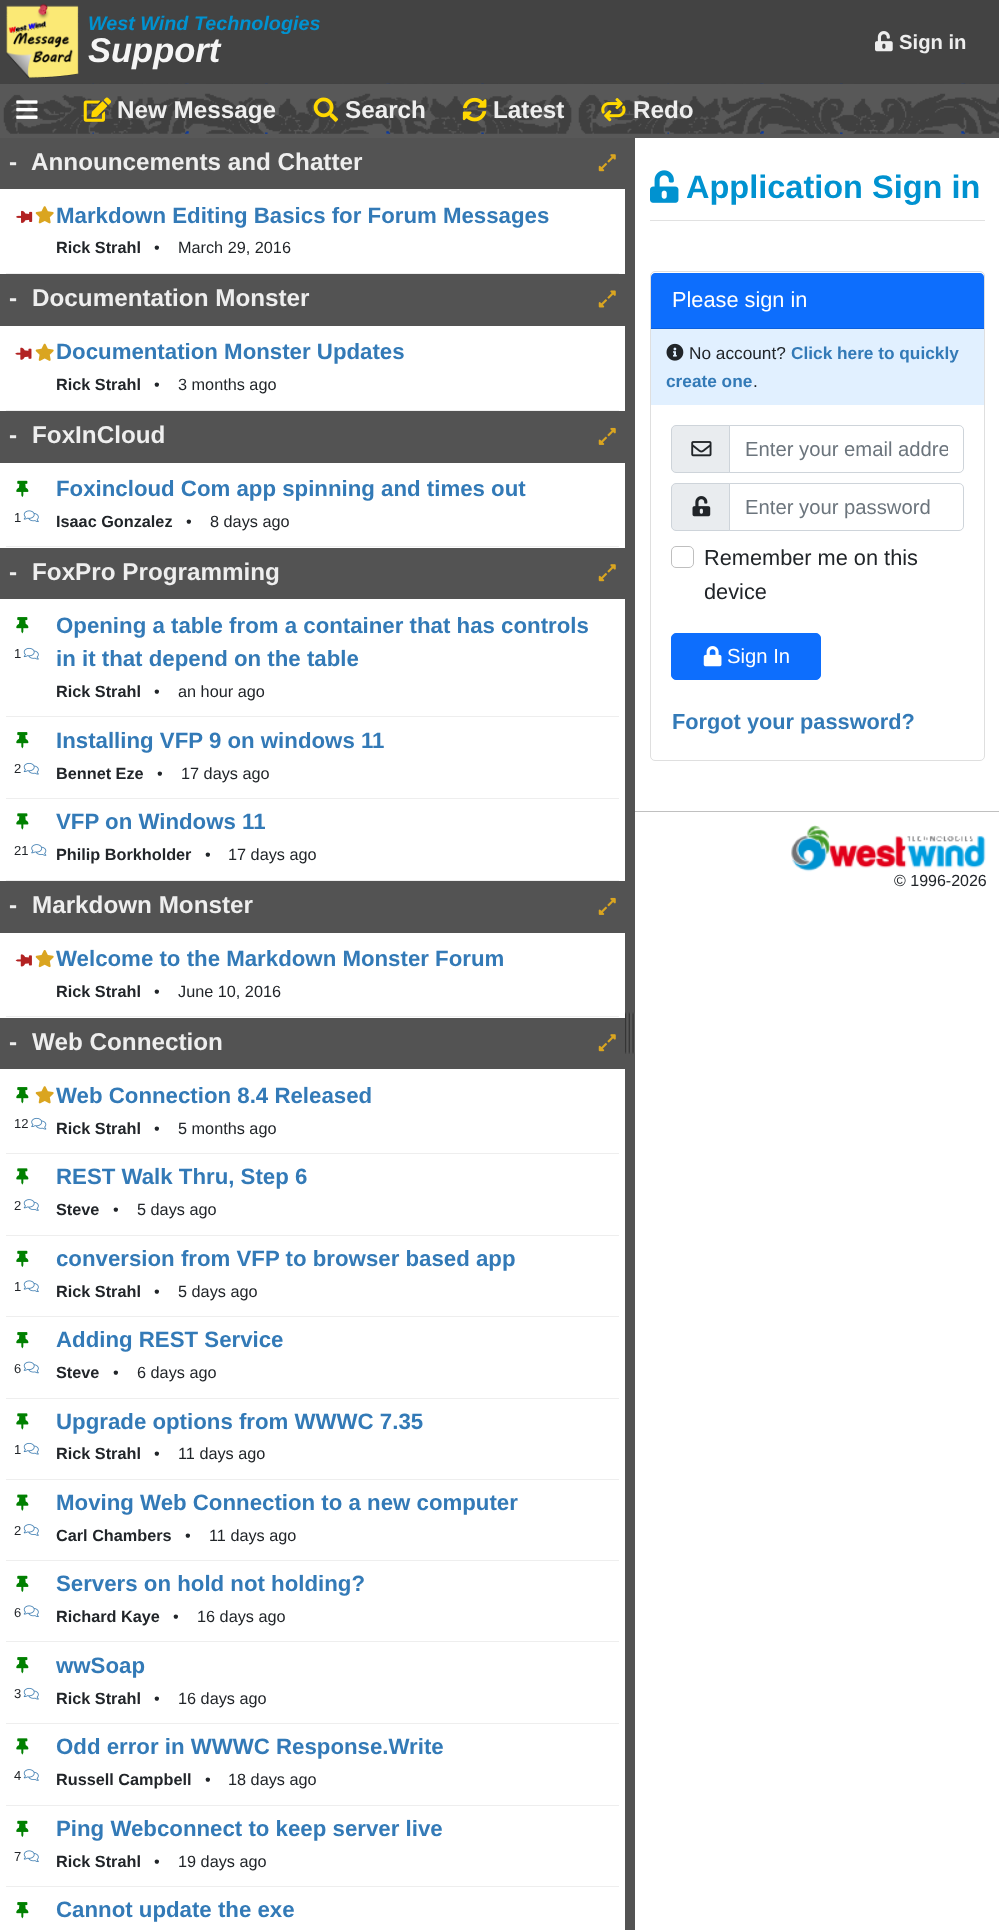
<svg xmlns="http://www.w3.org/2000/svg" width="999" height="1930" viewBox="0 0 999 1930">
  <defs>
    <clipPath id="clip1"><rect x="745" y="438" width="203" height="23"/></clipPath>
  </defs>
  <rect width="100%" height="100%" fill="#ffffff"/>
  <rect x="0" y="0" width="999" height="84" fill="#434343"/>
  <image x="6" y="3" width="73" height="75" href="img1.png"/>
  <text x="88" y="30" font-family="Liberation Sans" font-size="19.75" font-weight="bold" font-style="italic" fill="#0092d0">West Wind Technologies</text>
  <text x="88" y="62" font-family="Liberation Sans" font-size="34.5" font-weight="bold" font-style="italic" fill="#f5f5f5">Support</text>
  <image x="875" y="31" width="18" height="21" href="img2.png"/>
  <text x="899" y="49" font-family="Liberation Sans" font-size="20.25" font-weight="bold" fill="#eeeeee">Sign in</text>
  <rect x="0" y="84" width="999" height="54" fill="#585858"/>
  <image x="3" y="83" width="996" height="51" href="img3.png"/>
  <image x="16" y="100" width="22" height="19" href="img4.png"/>
  <image x="83" y="97" width="29" height="25" href="img5.png"/>
  <text x="117" y="118" font-family="Liberation Sans" font-size="24.25" font-weight="bold" fill="#eeeeee">New Message</text>
  <image x="313" y="97" width="25" height="25" href="img6.png"/>
  <text x="345" y="118" font-family="Liberation Sans" font-size="24.25" font-weight="bold" fill="#eeeeee">Search</text>
  <image x="462" y="97" width="25" height="25" href="img7.png"/>
  <text x="493" y="118" font-family="Liberation Sans" font-size="24.25" font-weight="bold" fill="#eeeeee">Latest</text>
  <image x="601" y="98" width="25" height="24" href="img8.png"/>
  <text x="633" y="118" font-family="Liberation Sans" font-size="24.25" font-weight="bold" fill="#eeeeee">Redo</text>
  <rect x="0" y="138" width="625" height="51" fill="#535353"/>
  <text x="9" y="170" font-family="Liberation Sans" font-size="24.25" font-weight="bold" fill="#eeeeee">-</text>
  <text x="31" y="170" font-family="Liberation Sans" font-size="24.25" font-weight="bold" fill="#eeeeee">Announcements and Chatter</text>
  <image x="598" y="154" width="18" height="18" href="img9.png"/>
  <rect x="6" y="273" width="613" height="1" fill="#eeeeee"/>
  <image x="16" y="210" width="17" height="13" href="img10.png"/>
  <image x="35" y="206" width="19" height="18" href="img11.png"/>
  <text x="56" y="223" font-family="Liberation Sans" font-size="22.25" font-weight="bold" fill="#337ab7">Markdown Editing Basics for Forum Messages</text>
  <text x="56" y="253" font-family="Liberation Sans" font-size="16.25" font-weight="bold" fill="#212529">Rick Strahl</text>
  <text x="154" y="253" font-family="Liberation Sans" font-size="16.25" fill="#212529">•</text>
  <text x="178" y="253" font-family="Liberation Sans" font-size="16.25" fill="#212529">March 29, 2016</text>
  <rect x="0" y="274" width="625" height="52" fill="#535353"/>
  <text x="9" y="306" font-family="Liberation Sans" font-size="24.25" font-weight="bold" fill="#eeeeee">-</text>
  <text x="32" y="306" font-family="Liberation Sans" font-size="24.25" font-weight="bold" fill="#eeeeee">Documentation Monster</text>
  <image x="598" y="290" width="18" height="18" href="img12.png"/>
  <rect x="6" y="410" width="613" height="1" fill="#eeeeee"/>
  <image x="15" y="347" width="17" height="13" href="img13.png"/>
  <image x="35" y="343" width="19" height="18" href="img14.png"/>
  <text x="56" y="359" font-family="Liberation Sans" font-size="22.25" font-weight="bold" fill="#337ab7">Documentation Monster Updates</text>
  <text x="56" y="390" font-family="Liberation Sans" font-size="16.25" font-weight="bold" fill="#212529">Rick Strahl</text>
  <text x="154" y="390" font-family="Liberation Sans" font-size="16.25" fill="#212529">•</text>
  <text x="178" y="390" font-family="Liberation Sans" font-size="16.25" fill="#212529">3 months ago</text>
  <rect x="0" y="411" width="625" height="52" fill="#535353"/>
  <text x="9" y="443" font-family="Liberation Sans" font-size="24.25" font-weight="bold" fill="#eeeeee">-</text>
  <text x="32" y="443" font-family="Liberation Sans" font-size="24.25" font-weight="bold" fill="#eeeeee">FoxInCloud</text>
  <image x="598" y="427" width="18" height="18" href="img15.png"/>
  <rect x="6" y="546" width="613" height="1" fill="#eeeeee"/>
  <text x="56" y="496" font-family="Liberation Sans" font-size="22.25" font-weight="bold" fill="#337ab7">Foxincloud Com app spinning and times out</text>
  <image x="16" y="480" width="13" height="17" href="img16.png"/>
  <text x="14" y="522" font-family="Liberation Sans" font-size="13" fill="#212529">1</text>
  <image x="23" y="510" width="16" height="13" href="img17.png"/>
  <text x="56" y="527" font-family="Liberation Sans" font-size="16.25" font-weight="bold" fill="#212529">Isaac Gonzalez</text>
  <text x="186" y="527" font-family="Liberation Sans" font-size="16.25" fill="#212529">•</text>
  <text x="210" y="527" font-family="Liberation Sans" font-size="16.25" fill="#212529">8 days ago</text>
  <rect x="0" y="548" width="625" height="51" fill="#535353"/>
  <text x="9" y="580" font-family="Liberation Sans" font-size="24.25" font-weight="bold" fill="#eeeeee">-</text>
  <text x="32" y="580" font-family="Liberation Sans" font-size="24.25" font-weight="bold" fill="#eeeeee">FoxPro Programming</text>
  <image x="598" y="564" width="18" height="18" href="img9.png"/>
  <rect x="6" y="716" width="613" height="1" fill="#eeeeee"/>
  <image x="16" y="617" width="13" height="17" href="img18.png"/>
  <text x="14" y="658" font-family="Liberation Sans" font-size="13" fill="#212529">1</text>
  <image x="23" y="647" width="16" height="13" href="img19.png"/>
  <text x="56" y="633" font-family="Liberation Sans" font-size="22.25" font-weight="bold" fill="#337ab7">Opening a table from a container that has controls</text>
  <text x="56" y="666" font-family="Liberation Sans" font-size="22.25" font-weight="bold" fill="#337ab7">in it that depend on the table</text>
  <text x="56" y="697" font-family="Liberation Sans" font-size="16.25" font-weight="bold" fill="#212529">Rick Strahl</text>
  <text x="154" y="697" font-family="Liberation Sans" font-size="16.25" fill="#212529">•</text>
  <text x="178" y="697" font-family="Liberation Sans" font-size="16.25" fill="#212529">an hour ago</text>
  <rect x="6" y="798" width="613" height="1" fill="#eeeeee"/>
  <text x="56" y="748" font-family="Liberation Sans" font-size="22.25" font-weight="bold" fill="#337ab7">Installing VFP 9 on windows 11</text>
  <image x="16" y="732" width="13" height="17" href="img18.png"/>
  <text x="14" y="773" font-family="Liberation Sans" font-size="13" fill="#212529">2</text>
  <image x="23" y="762" width="16" height="13" href="img19.png"/>
  <text x="56" y="779" font-family="Liberation Sans" font-size="16.25" font-weight="bold" fill="#212529">Bennet Eze</text>
  <text x="157" y="779" font-family="Liberation Sans" font-size="16.25" fill="#212529">•</text>
  <text x="181" y="779" font-family="Liberation Sans" font-size="16.25" fill="#212529">17 days ago</text>
  <rect x="6" y="880" width="613" height="1" fill="#eeeeee"/>
  <text x="56" y="829" font-family="Liberation Sans" font-size="22.25" font-weight="bold" fill="#337ab7">VFP on Windows 11</text>
  <image x="16" y="813" width="13" height="17" href="img20.png"/>
  <text x="14" y="855" font-family="Liberation Sans" font-size="13" fill="#212529">21</text>
  <image x="31" y="844" width="16" height="12" href="img21.png"/>
  <text x="56" y="860" font-family="Liberation Sans" font-size="16.25" font-weight="bold" fill="#212529">Philip Borkholder</text>
  <text x="205" y="860" font-family="Liberation Sans" font-size="16.25" fill="#212529">•</text>
  <text x="228" y="860" font-family="Liberation Sans" font-size="16.25" fill="#212529">17 days ago</text>
  <rect x="0" y="881" width="625" height="52" fill="#535353"/>
  <text x="9" y="913" font-family="Liberation Sans" font-size="24.25" font-weight="bold" fill="#eeeeee">-</text>
  <text x="32" y="913" font-family="Liberation Sans" font-size="24.25" font-weight="bold" fill="#eeeeee">Markdown Monster</text>
  <image x="598" y="897" width="18" height="18" href="img15.png"/>
  <rect x="6" y="1016" width="613" height="1" fill="#eeeeee"/>
  <image x="15" y="954" width="17" height="13" href="img22.png"/>
  <image x="35" y="950" width="19" height="18" href="img23.png"/>
  <text x="56" y="966" font-family="Liberation Sans" font-size="22.25" font-weight="bold" fill="#337ab7">Welcome to the Markdown Monster Forum</text>
  <text x="56" y="997" font-family="Liberation Sans" font-size="16.25" font-weight="bold" fill="#212529">Rick Strahl</text>
  <text x="154" y="997" font-family="Liberation Sans" font-size="16.25" fill="#212529">•</text>
  <text x="178" y="997" font-family="Liberation Sans" font-size="16.25" fill="#212529">June 10, 2016</text>
  <rect x="0" y="1018" width="625" height="51" fill="#535353"/>
  <text x="9" y="1050" font-family="Liberation Sans" font-size="24.25" font-weight="bold" fill="#eeeeee">-</text>
  <text x="32" y="1050" font-family="Liberation Sans" font-size="24.25" font-weight="bold" fill="#eeeeee">Web Connection</text>
  <image x="598" y="1034" width="18" height="18" href="img9.png"/>
  <rect x="6" y="1153" width="613" height="1" fill="#eeeeee"/>
  <text x="56" y="1103" font-family="Liberation Sans" font-size="22.25" font-weight="bold" fill="#337ab7">Web Connection 8.4 Released</text>
  <image x="16" y="1087" width="13" height="17" href="img18.png"/>
  <image x="35" y="1086" width="19" height="18" href="img11.png"/>
  <text x="14" y="1128" font-family="Liberation Sans" font-size="13" fill="#212529">12</text>
  <image x="31" y="1117" width="16" height="13" href="img24.png"/>
  <text x="56" y="1134" font-family="Liberation Sans" font-size="16.25" font-weight="bold" fill="#212529">Rick Strahl</text>
  <text x="154" y="1134" font-family="Liberation Sans" font-size="16.25" fill="#212529">•</text>
  <text x="178" y="1134" font-family="Liberation Sans" font-size="16.25" fill="#212529">5 months ago</text>
  <rect x="6" y="1235" width="613" height="1" fill="#eeeeee"/>
  <text x="56" y="1184" font-family="Liberation Sans" font-size="22.25" font-weight="bold" fill="#337ab7">REST Walk Thru, Step 6</text>
  <image x="16" y="1168" width="13" height="17" href="img20.png"/>
  <text x="14" y="1210" font-family="Liberation Sans" font-size="13" fill="#212529">2</text>
  <image x="23" y="1199" width="16" height="12" href="img25.png"/>
  <text x="56" y="1215" font-family="Liberation Sans" font-size="16.25" font-weight="bold" fill="#212529">Steve</text>
  <text x="113" y="1215" font-family="Liberation Sans" font-size="16.25" fill="#212529">•</text>
  <text x="137" y="1215" font-family="Liberation Sans" font-size="16.25" fill="#212529">5 days ago</text>
  <rect x="6" y="1316" width="613" height="1" fill="#eeeeee"/>
  <text x="56" y="1266" font-family="Liberation Sans" font-size="22.25" font-weight="bold" fill="#337ab7">conversion from VFP to browser based app</text>
  <image x="16" y="1250" width="13" height="17" href="img16.png"/>
  <text x="14" y="1291" font-family="Liberation Sans" font-size="13" fill="#212529">1</text>
  <image x="23" y="1280" width="16" height="13" href="img17.png"/>
  <text x="56" y="1297" font-family="Liberation Sans" font-size="16.25" font-weight="bold" fill="#212529">Rick Strahl</text>
  <text x="154" y="1297" font-family="Liberation Sans" font-size="16.25" fill="#212529">•</text>
  <text x="178" y="1297" font-family="Liberation Sans" font-size="16.25" fill="#212529">5 days ago</text>
  <rect x="6" y="1398" width="613" height="1" fill="#eeeeee"/>
  <text x="56" y="1347" font-family="Liberation Sans" font-size="22.25" font-weight="bold" fill="#337ab7">Adding REST Service</text>
  <image x="16" y="1332" width="13" height="17" href="img18.png"/>
  <text x="14" y="1373" font-family="Liberation Sans" font-size="13" fill="#212529">6</text>
  <image x="23" y="1361" width="16" height="13" href="img26.png"/>
  <text x="56" y="1378" font-family="Liberation Sans" font-size="16.25" font-weight="bold" fill="#212529">Steve</text>
  <text x="113" y="1378" font-family="Liberation Sans" font-size="16.25" fill="#212529">•</text>
  <text x="137" y="1378" font-family="Liberation Sans" font-size="16.25" fill="#212529">6 days ago</text>
  <rect x="6" y="1479" width="613" height="1" fill="#eeeeee"/>
  <text x="56" y="1429" font-family="Liberation Sans" font-size="22.25" font-weight="bold" fill="#337ab7">Upgrade options from WWWC 7.35</text>
  <image x="16" y="1413" width="13" height="17" href="img20.png"/>
  <text x="14" y="1454" font-family="Liberation Sans" font-size="13" fill="#212529">1</text>
  <image x="23" y="1442" width="16" height="13" href="img19.png"/>
  <text x="56" y="1459" font-family="Liberation Sans" font-size="16.25" font-weight="bold" fill="#212529">Rick Strahl</text>
  <text x="154" y="1459" font-family="Liberation Sans" font-size="16.25" fill="#212529">•</text>
  <text x="178" y="1459" font-family="Liberation Sans" font-size="16.25" fill="#212529">11 days ago</text>
  <rect x="6" y="1560" width="613" height="1" fill="#eeeeee"/>
  <text x="56" y="1510" font-family="Liberation Sans" font-size="22.25" font-weight="bold" fill="#337ab7">Moving Web Connection to a new computer</text>
  <image x="16" y="1494" width="13" height="17" href="img27.png"/>
  <text x="14" y="1535" font-family="Liberation Sans" font-size="13" fill="#212529">2</text>
  <image x="23" y="1524" width="16" height="12" href="img25.png"/>
  <text x="56" y="1541" font-family="Liberation Sans" font-size="16.25" font-weight="bold" fill="#212529">Carl Chambers</text>
  <text x="185" y="1541" font-family="Liberation Sans" font-size="16.25" fill="#212529">•</text>
  <text x="209" y="1541" font-family="Liberation Sans" font-size="16.25" fill="#212529">11 days ago</text>
  <rect x="6" y="1641" width="613" height="1" fill="#eeeeee"/>
  <text x="56" y="1591" font-family="Liberation Sans" font-size="22.25" font-weight="bold" fill="#337ab7">Servers on hold not holding?</text>
  <image x="16" y="1575" width="13" height="17" href="img16.png"/>
  <text x="14" y="1617" font-family="Liberation Sans" font-size="13" fill="#212529">6</text>
  <image x="23" y="1605" width="16" height="13" href="img17.png"/>
  <text x="56" y="1622" font-family="Liberation Sans" font-size="16.25" font-weight="bold" fill="#212529">Richard Kaye</text>
  <text x="173" y="1622" font-family="Liberation Sans" font-size="16.25" fill="#212529">•</text>
  <text x="197" y="1622" font-family="Liberation Sans" font-size="16.25" fill="#212529">16 days ago</text>
  <rect x="6" y="1723" width="613" height="1" fill="#eeeeee"/>
  <text x="56" y="1673" font-family="Liberation Sans" font-size="22.25" font-weight="bold" fill="#337ab7">wwSoap</text>
  <image x="16" y="1657" width="13" height="17" href="img18.png"/>
  <text x="14" y="1698" font-family="Liberation Sans" font-size="13" fill="#212529">3</text>
  <image x="23" y="1687" width="16" height="13" href="img19.png"/>
  <text x="56" y="1704" font-family="Liberation Sans" font-size="16.25" font-weight="bold" fill="#212529">Rick Strahl</text>
  <text x="154" y="1704" font-family="Liberation Sans" font-size="16.25" fill="#212529">•</text>
  <text x="178" y="1704" font-family="Liberation Sans" font-size="16.25" fill="#212529">16 days ago</text>
  <rect x="6" y="1805" width="613" height="1" fill="#eeeeee"/>
  <text x="56" y="1754" font-family="Liberation Sans" font-size="22.25" font-weight="bold" fill="#337ab7">Odd error in WWWC Response.Write</text>
  <image x="16" y="1738" width="13" height="17" href="img20.png"/>
  <text x="14" y="1780" font-family="Liberation Sans" font-size="13" fill="#212529">4</text>
  <image x="23" y="1769" width="16" height="12" href="img25.png"/>
  <text x="56" y="1785" font-family="Liberation Sans" font-size="16.25" font-weight="bold" fill="#212529">Russell Campbell</text>
  <text x="205" y="1785" font-family="Liberation Sans" font-size="16.25" fill="#212529">•</text>
  <text x="228" y="1785" font-family="Liberation Sans" font-size="16.25" fill="#212529">18 days ago</text>
  <rect x="6" y="1886" width="613" height="1" fill="#eeeeee"/>
  <text x="56" y="1836" font-family="Liberation Sans" font-size="22.25" font-weight="bold" fill="#337ab7">Ping Webconnect to keep server live</text>
  <image x="16" y="1820" width="13" height="17" href="img16.png"/>
  <text x="14" y="1861" font-family="Liberation Sans" font-size="13" fill="#212529">7</text>
  <image x="23" y="1850" width="16" height="13" href="img17.png"/>
  <text x="56" y="1867" font-family="Liberation Sans" font-size="16.25" font-weight="bold" fill="#212529">Rick Strahl</text>
  <text x="154" y="1867" font-family="Liberation Sans" font-size="16.25" fill="#212529">•</text>
  <text x="178" y="1867" font-family="Liberation Sans" font-size="16.25" fill="#212529">19 days ago</text>
  <image x="16" y="1902" width="13" height="17" href="img18.png"/>
  <text x="56" y="1917" font-family="Liberation Sans" font-size="22.25" font-weight="bold" fill="#337ab7">Cannot update the exe</text>
  <rect x="625" y="138" width="10" height="1792" fill="#535353"/>
  <image x="625" y="1012" width="10" height="42" href="img28.png"/>
  <rect x="650" y="220" width="335" height="1" fill="#e1e1e1"/>
  <image x="650" y="170" width="29" height="33" href="img29.png"/>
  <text x="686" y="198" font-family="Liberation Sans" font-size="32.5" font-weight="bold" fill="#0092d0">Application Sign in</text>
  <rect x="650.5" y="271.5" width="334" height="489" rx="4.5" fill="none" stroke="#dfdfdf"/>
  <path d="M655 273H980C982 273 984 275 984 277V329H651V277C651 275 653 273 655 273Z" fill="#0d6efd"/>
  <rect x="651" y="328" width="333" height="1" fill="#0b60dd"/>
  <text x="672" y="307" font-family="Liberation Sans" font-size="21.75" fill="#ffffff">Please sign in</text>
  <rect x="651" y="329" width="333" height="76" fill="#e1f0ff"/>
  <image x="666" y="343" width="18" height="18" href="img30.png"/>
  <text x="689" y="359" font-family="Liberation Sans" font-size="17.25" fill="#212529">No account?</text>
  <text x="791" y="359" font-family="Liberation Sans" font-size="17.25" font-weight="bold" fill="#337ab7">Click here to quickly</text>
  <text x="666" y="387" font-family="Liberation Sans" font-size="17.25" font-weight="bold" fill="#337ab7">create one</text>
  <text x="753" y="387" font-family="Liberation Sans" font-size="17.25" fill="#212529">.</text>
  <path d="M676 425.5H729.5V472.5H676C673.5 472.5 671.5 470.5 671.5 468V430C671.5 427.5 673.5 425.5 676 425.5Z" fill="#e9ecef" stroke="#ced4da"/>
  <image x="691" y="441" width="21" height="16" href="img31.png"/>
  <path d="M729.5 425.5H959C961.5 425.5 963.5 427.5 963.5 430V468C963.5 470.5 961.5 472.5 959 472.5H729.5Z" fill="none" stroke="#ced4da"/>
  <g clip-path="url(#clip1)">
    <text x="745" y="456" font-family="Liberation Sans" font-size="20.25" fill="#6c757d">Enter your email addre</text>
  </g>
  <path d="M676 483.5H729.5V530.5H676C673.5 530.5 671.5 528.5 671.5 526V488C671.5 485.5 673.5 483.5 676 483.5Z" fill="#e9ecef" stroke="#ced4da"/>
  <image x="692" y="496" width="19" height="21" href="img32.png"/>
  <path d="M729.5 483.5H959C961.5 483.5 963.5 485.5 963.5 488V526C963.5 528.5 961.5 530.5 959 530.5H729.5Z" fill="none" stroke="#ced4da"/>
  <text x="745" y="514" font-family="Liberation Sans" font-size="20.25" fill="#6c757d">Enter your password</text>
  <rect x="671.5" y="546.5" width="22" height="21" rx="4.5" fill="none" stroke="#bfbfbf"/>
  <text x="704" y="565" font-family="Liberation Sans" font-size="21.75" fill="#212529">Remember me on this</text>
  <text x="704" y="599" font-family="Liberation Sans" font-size="21.75" fill="#212529">device</text>
  <rect x="671.5" y="633.5" width="149" height="46" rx="4.5" fill="#0d6efd" stroke="#0d6efd"/>
  <image x="703" y="646" width="19" height="21" href="img33.png"/>
  <text x="727" y="663" font-family="Liberation Sans" font-size="20.25" fill="#ffffff">Sign In</text>
  <text x="672" y="729" font-family="Liberation Sans" font-size="21.75" font-weight="bold" fill="#337ab7">Forgot your password?</text>
  <rect x="635" y="811" width="364" height="1" fill="#c0c0c0"/>
  <image x="791" y="825" width="195" height="47" href="img34.png"/>
  <text x="894" y="886" font-family="Liberation Sans" font-size="16" fill="#212529">© 1996-2026</text>
</svg>
